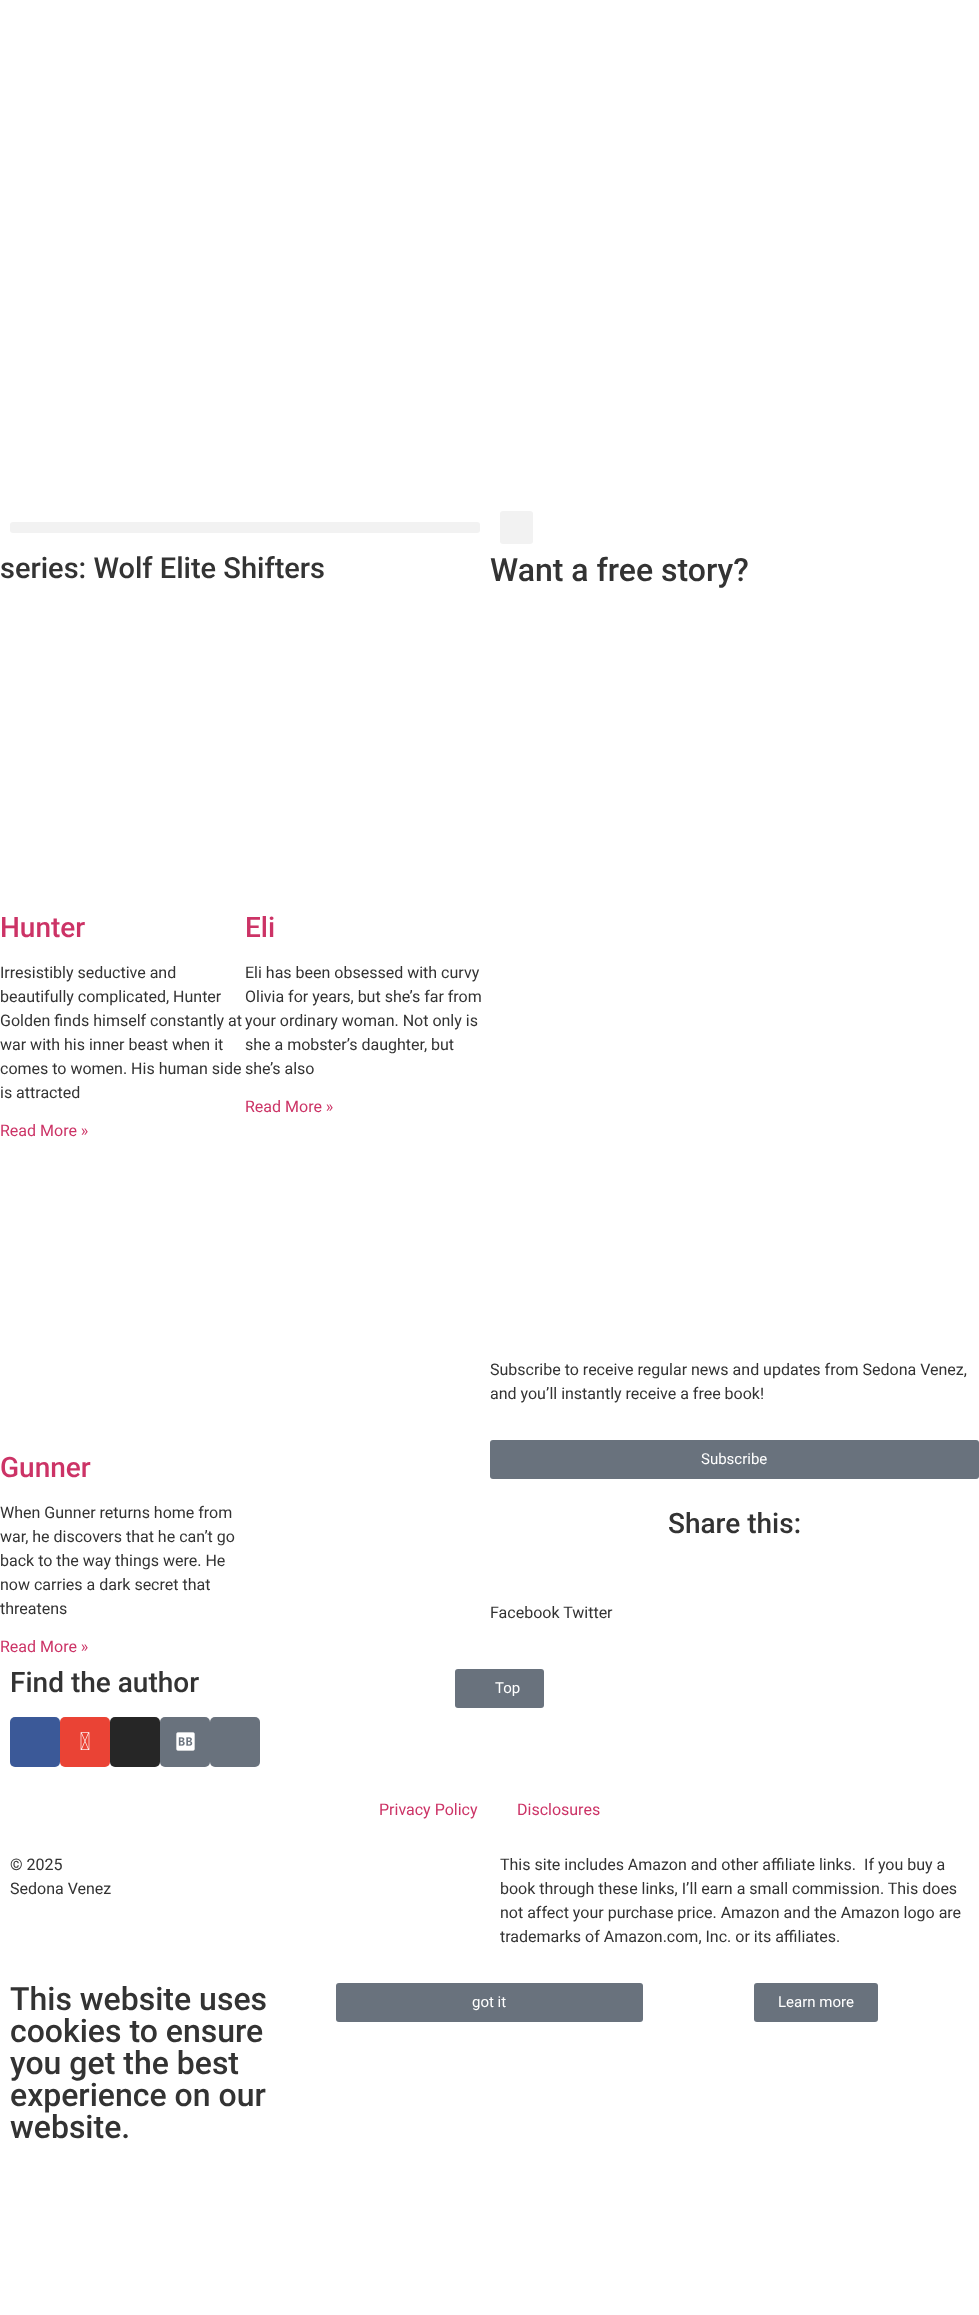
<svg xmlns="http://www.w3.org/2000/svg" width="979" height="2315" viewBox="0 0 979 2315">
  <rect width="100%" height="100%" fill="#ffffff"/>
  <rect x="10" y="522" width="470" height="11" rx="3" fill="#f2f2f2"/>
  <rect x="500" y="511" width="33" height="33" rx="3" fill="#f2f2f2"/>
  <text x="0" y="578" font-family="Roboto" font-size="29" font-weight="500" fill="#333333">series: Wolf Elite Shifters</text>
  <text x="0" y="937" font-family="Roboto" font-size="28" font-weight="500" fill="#cc3366">Hunter</text>
  <text x="0" y="978" font-family="Roboto" font-size="16" fill="#333333">Irresistibly seductive and</text>
  <text x="0" y="1002" font-family="Roboto" font-size="16" fill="#333333">beautifully complicated, Hunter</text>
  <text x="0" y="1026" font-family="Roboto" font-size="16" fill="#333333">Golden finds himself constantly at</text>
  <text x="0" y="1050" font-family="Roboto" font-size="16" fill="#333333">war with his inner beast when it</text>
  <text x="0" y="1074" font-family="Roboto" font-size="16" fill="#333333">comes to women. His human side</text>
  <text x="0" y="1098" font-family="Roboto" font-size="16" fill="#333333">is attracted</text>
  <text x="0" y="1136" font-family="Roboto" font-size="16" fill="#cc3366">Read More »</text>
  <text x="245" y="937" font-family="Roboto" font-size="28" font-weight="500" fill="#cc3366">Eli</text>
  <text x="245" y="978" font-family="Roboto" font-size="16" fill="#333333">Eli has been obsessed with curvy</text>
  <text x="245" y="1002" font-family="Roboto" font-size="16" fill="#333333">Olivia for years, but she’s far from</text>
  <text x="245" y="1026" font-family="Roboto" font-size="16" fill="#333333">your ordinary woman. Not only is</text>
  <text x="245" y="1050" font-family="Roboto" font-size="16" fill="#333333">she a mobster’s daughter, but</text>
  <text x="245" y="1074" font-family="Roboto" font-size="16" fill="#333333">she’s also</text>
  <text x="245" y="1112" font-family="Roboto" font-size="16" fill="#cc3366">Read More »</text>
  <text x="0" y="1477" font-family="Roboto" font-size="28" font-weight="500" fill="#cc3366">Gunner</text>
  <text x="0" y="1518" font-family="Roboto" font-size="16" fill="#333333">When Gunner returns home from</text>
  <text x="0" y="1542" font-family="Roboto" font-size="16" fill="#333333">war, he discovers that he can’t go</text>
  <text x="0" y="1566" font-family="Roboto" font-size="16" fill="#333333">back to the way things were. He</text>
  <text x="0" y="1590" font-family="Roboto" font-size="16" fill="#333333">now carries a dark secret that</text>
  <text x="0" y="1614" font-family="Roboto" font-size="16" fill="#333333">threatens</text>
  <text x="0" y="1652" font-family="Roboto" font-size="16" fill="#cc3366">Read More »</text>
  <text x="490" y="581" font-family="Roboto" font-size="32" font-weight="500" fill="#333333">Want a free story?</text>
  <text x="490" y="1375" font-family="Roboto" font-size="16" fill="#333333">Subscribe to receive regular news and updates from Sedona Venez,</text>
  <text x="490" y="1399" font-family="Roboto" font-size="16" fill="#333333">and you’ll instantly receive a free book!</text>
  <rect x="490" y="1440" width="489" height="39" rx="3" fill="#69727d"/>
  <text x="701" y="1464" font-family="Roboto" font-size="15" fill="#ffffff">Subscribe</text>
  <text x="668" y="1533" font-family="Roboto" font-size="28" font-weight="500" fill="#333333">Share this:</text>
  <text x="490" y="1618" font-family="Roboto" font-size="16" fill="#333333">Facebook Twitter</text>
  <text x="10" y="1692" font-family="Roboto" font-size="28" font-weight="500" fill="#333333">Find the author</text>
  <rect x="455" y="1669" width="89" height="39" rx="3" fill="#69727d"/>
  <text x="495" y="1693" font-family="Roboto" font-size="15" fill="#ffffff">Top</text>
  <rect x="10" y="1717" width="50" height="50" rx="5" fill="#3b5998"/>
  <rect x="60" y="1717" width="50" height="50" rx="5" fill="#ea4335"/>
  <image x="80" y="1732" width="10" height="18" href="img1.png"/>
  <rect x="110" y="1717" width="50" height="50" rx="5" fill="#262626"/>
  <rect x="160" y="1717" width="50" height="50" rx="5" fill="#69727d"/>
  <image x="176" y="1732" width="19" height="19" href="img2.png"/>
  <rect x="210" y="1717" width="50" height="50" rx="5" fill="#69727d"/>
  <text x="379" y="1815" font-family="Roboto" font-size="16" fill="#cc3366">Privacy Policy</text>
  <text x="517" y="1815" font-family="Roboto" font-size="16" fill="#cc3366">Disclosures</text>
  <text x="10" y="1870" font-family="Roboto" font-size="16" fill="#333333">© 2025</text>
  <text x="10" y="1894" font-family="Roboto" font-size="16" fill="#333333">Sedona Venez</text>
  <text x="500" y="1870" font-family="Roboto" font-size="16" fill="#333333" xml:space="preserve">This site includes Amazon and other affiliate links.  If you buy a</text>
  <text x="500" y="1894" font-family="Roboto" font-size="16" fill="#333333">book through these links, I’ll earn a small commission. This does</text>
  <text x="500" y="1918" font-family="Roboto" font-size="16" fill="#333333">not affect your purchase price. Amazon and the Amazon logo are</text>
  <text x="500" y="1942" font-family="Roboto" font-size="16" fill="#333333">trademarks of Amazon.com, Inc. or its affiliates.</text>
  <text x="10" y="2010" font-family="Roboto" font-size="32" font-weight="500" fill="#333333">This website uses</text>
  <text x="10" y="2042" font-family="Roboto" font-size="32" font-weight="500" fill="#333333">cookies to ensure</text>
  <text x="10" y="2074" font-family="Roboto" font-size="32" font-weight="500" fill="#333333">you get the best</text>
  <text x="10" y="2106" font-family="Roboto" font-size="32" font-weight="500" fill="#333333">experience on our</text>
  <text x="10" y="2138" font-family="Roboto" font-size="32" font-weight="500" fill="#333333">website.</text>
  <rect x="336" y="1983" width="307" height="39" rx="3" fill="#69727d"/>
  <text x="472" y="2007" font-family="Roboto" font-size="15" fill="#ffffff">got it</text>
  <rect x="754" y="1983" width="124" height="39" rx="3" fill="#69727d"/>
  <text x="778" y="2007" font-family="Roboto" font-size="15" fill="#ffffff">Learn more</text>
</svg>
